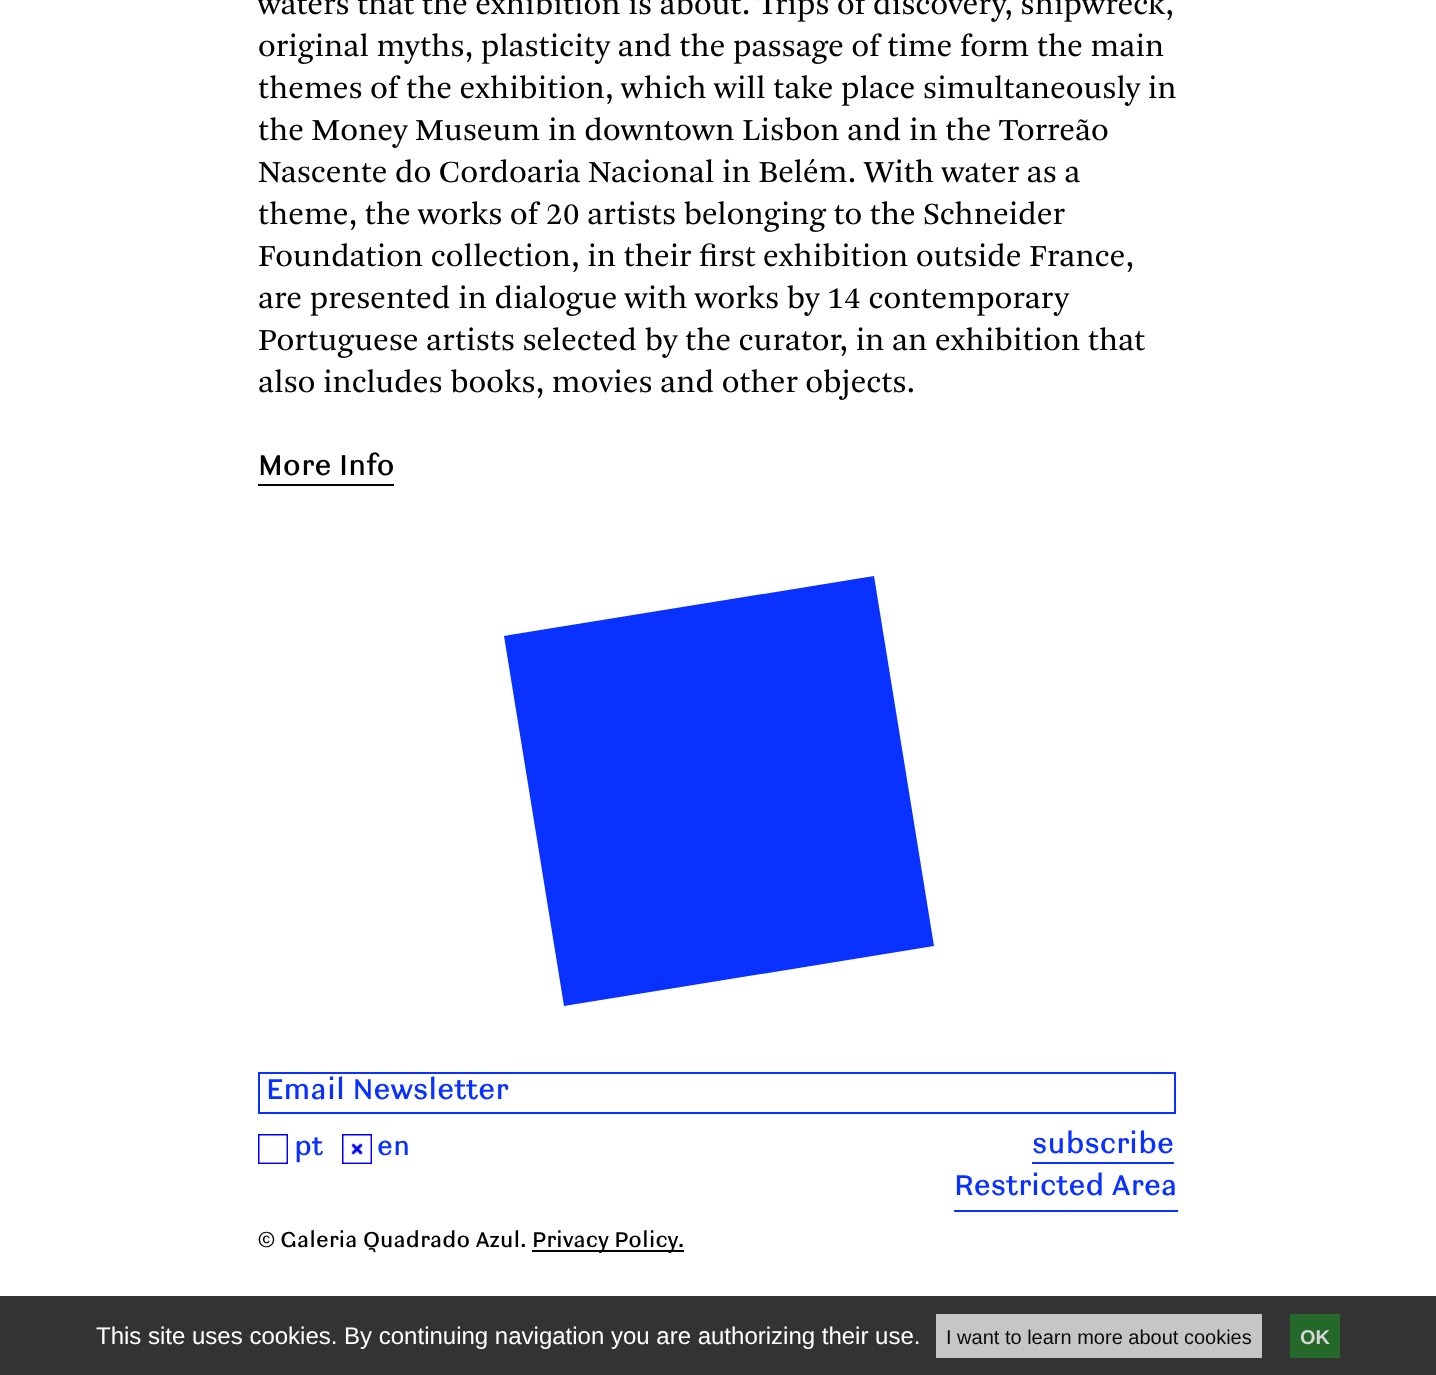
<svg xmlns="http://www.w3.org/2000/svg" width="1436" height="1375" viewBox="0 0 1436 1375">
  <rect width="100%" height="100%" fill="#ffffff"/>
  <image x="258" y="0" width="914" height="22" href="img1.png"/>
  <image x="259" y="33" width="905" height="31" href="img2.png"/>
  <image x="258" y="75" width="918" height="31" href="img3.png"/>
  <image x="258" y="117" width="850" height="31" href="img4.png"/>
  <image x="258" y="158" width="597" height="25" href="img5.png"/>
  <image x="863" y="159" width="217" height="24" href="img6.png"/>
  <image x="258" y="201" width="807" height="31" href="img7.png"/>
  <image x="259" y="243" width="874" height="29" href="img8.png"/>
  <image x="259" y="285" width="811" height="31" href="img9.png"/>
  <image x="259" y="327" width="887" height="31" href="img10.png"/>
  <image x="259" y="369" width="654" height="31" href="img11.png"/>
  <rect x="258" y="484" width="136" height="2" fill="#000000"/>
  <text x="258" y="475" font-family="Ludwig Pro" font-size="32" fill="#000000">More Info</text>
  <path d="M504 636L564 1006L934 946L874 576Z" fill="#0931ff"/>
  <rect x="259" y="1073" width="916" height="40" fill="none" stroke="#0931ff" stroke-width="2"/>
  <text x="266" y="1099" font-family="Ludwig Pro" font-size="32" fill="#0931ff">Email Newsletter</text>
  <image x="258" y="1134" width="30" height="30" href="img12.png"/>
  <text x="294" y="1155" font-family="Ludwig Pro" font-size="30" fill="#0931ff">pt</text>
  <image x="342" y="1134" width="30" height="30" href="img13.png"/>
  <text x="377" y="1155" font-family="Ludwig Pro" font-size="30" fill="#0931ff">en</text>
  <rect x="1032" y="1162" width="142" height="2" fill="#0931ff"/>
  <text x="1032" y="1153" font-family="Ludwig Pro" font-size="32" fill="#0931ff">subscribe</text>
  <rect x="954" y="1210" width="224" height="2" fill="#0931ff"/>
  <text x="954" y="1195" font-family="Ludwig Pro" font-size="32" fill="#0931ff">Restricted Area</text>
  <text x="258" y="1247" font-family="Ludwig Pro" font-size="24" fill="#000000">© Galeria Quadrado Azul.</text>
  <rect x="532" y="1250" width="152" height="2" fill="#000000"/>
  <text x="532" y="1247" font-family="Ludwig Pro" font-size="24" fill="#000000">Privacy Policy.</text>
  <rect x="0" y="1296" width="1436" height="79" fill="#333333"/>
  <text x="96" y="1344" font-family="Liberation Sans" font-size="24" fill="#ffffff">This site uses cookies. By continuing navigation you are authorizing their use.</text>
  <rect x="936" y="1314" width="326" height="44" fill="#c6c6c6"/>
  <text x="946" y="1344" font-family="Liberation Sans" font-size="20" fill="#0a0a0a">I want to learn more about cookies</text>
  <rect x="1290" y="1314" width="50" height="44" fill="#246929"/>
  <text x="1300" y="1344" font-family="Liberation Sans" font-size="20" font-weight="bold" fill="#d6d6d6">OK</text>
</svg>
